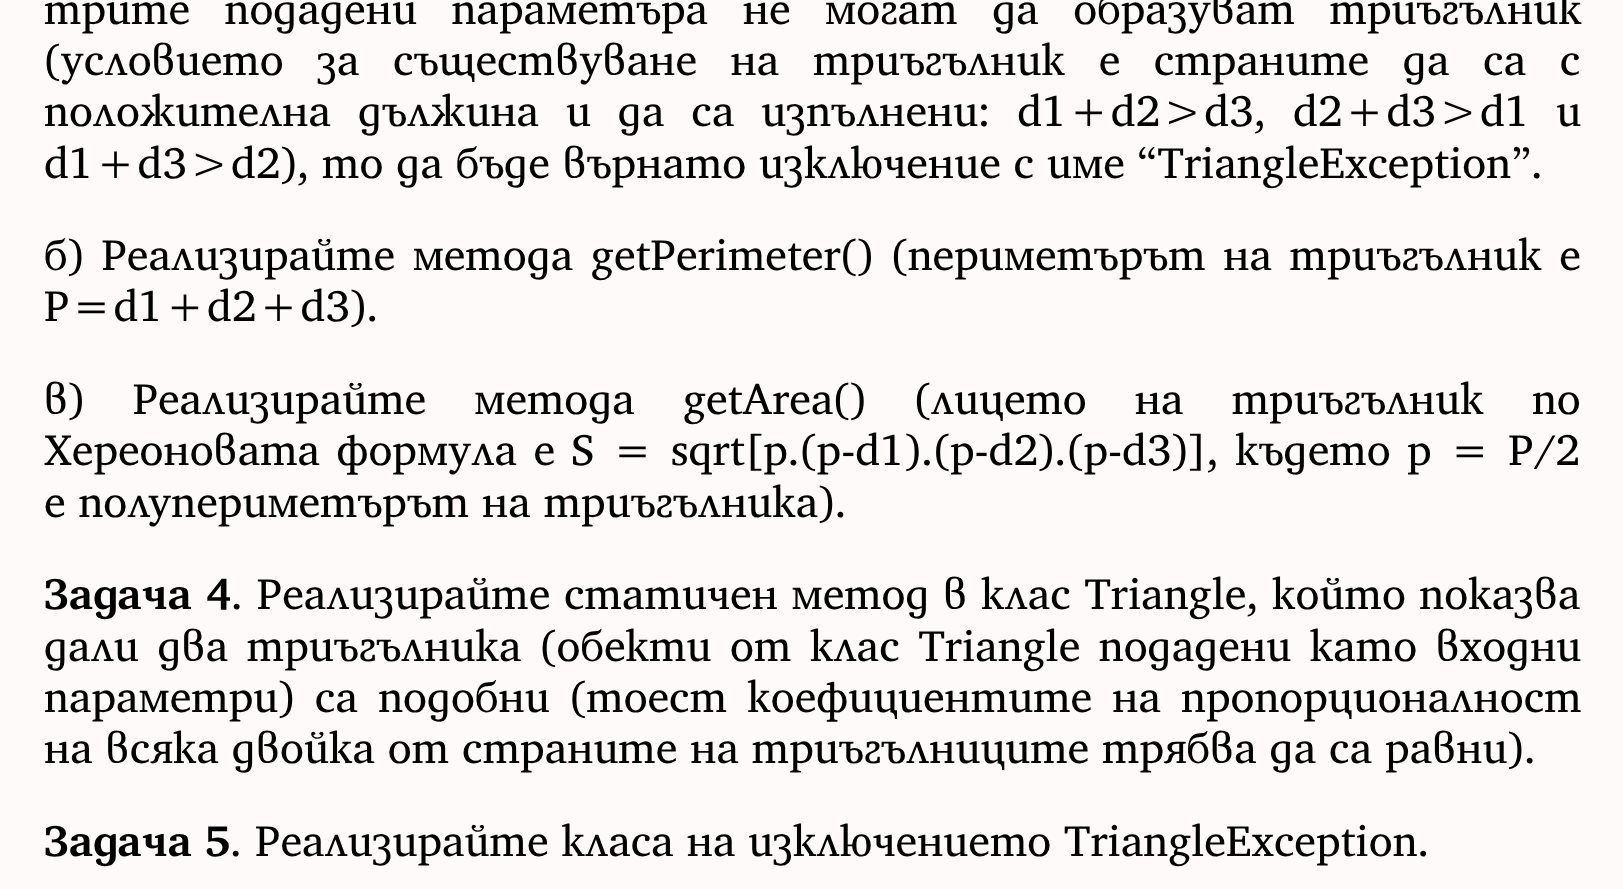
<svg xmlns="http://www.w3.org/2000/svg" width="1623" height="889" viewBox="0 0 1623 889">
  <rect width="100%" height="100%" fill="#fffafa"/>
  <text x="44" y="24" word-spacing="21.75" font-family="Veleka" font-size="44" fill="#000000">трите подадени параметъра не могат да образуват триъгълник</text>
  <text x="44" y="75" word-spacing="20.75" font-family="Veleka" font-size="44" fill="#000000">(условието за съществуване на триъгълник е страните да са с</text>
  <text x="44" y="126" word-spacing="14" font-family="Veleka" font-size="44" fill="#000000">положителна дължина и да са изпълнени: d1+d2&gt;d3, d2+d3&gt;d1 и</text>
  <text x="44" y="178" font-family="Veleka" font-size="44" fill="#000000">d1+d3&gt;d2), то да бъде върнато изключение с име “TriangleException”.</text>
  <text x="44" y="270" word-spacing="4.75" font-family="Veleka" font-size="44" fill="#000000">б) Реализирайте метода getPerimeter() (периметърът на триъгълник е</text>
  <text x="44" y="321" font-family="Veleka" font-size="44" fill="#000000">P=d1+d2+d3).</text>
  <text x="44" y="414" word-spacing="35.25" font-family="Veleka" font-size="44" fill="#000000">в) Реализирайте метода getArea() (лицето на триъгълник по</text>
  <text x="44" y="465" word-spacing="3.5" font-family="Veleka" font-size="44" fill="#000000">Хереоновата формула е S = sqrt[p.(p-d1).(p-d2).(p-d3)], където p = P/2</text>
  <text x="44" y="517" font-family="Veleka" font-size="44" fill="#000000">е полупериметърът на триъгълника).</text>
  <text x="44" y="609" word-spacing="1" font-family="Veleka" font-size="44" font-weight="bold" fill="#000000">Задача 4</text>
  <text x="231" y="609" word-spacing="0.75" font-family="Veleka" font-size="44" fill="#000000">. Реализирайте статичен метод в клас Triangle, който показва</text>
  <text x="44" y="661" word-spacing="5.75" font-family="Veleka" font-size="44" fill="#000000">дали два триъгълника (обекти от клас Triangle подадени като входни</text>
  <text x="44" y="712" word-spacing="7.25" font-family="Veleka" font-size="44" fill="#000000">параметри) са подобни (тоест коефициентите на пропорционалност</text>
  <text x="44" y="763" font-family="Veleka" font-size="44" fill="#000000">на всяка двойка от страните на триъгълниците трябва да са равни).</text>
  <text x="44" y="856" font-family="Veleka" font-size="44" font-weight="bold" fill="#000000">Задача 5</text>
  <text x="230" y="856" font-family="Veleka" font-size="44" fill="#000000">. Реализирайте класа на изключението TriangleException.</text>
</svg>
